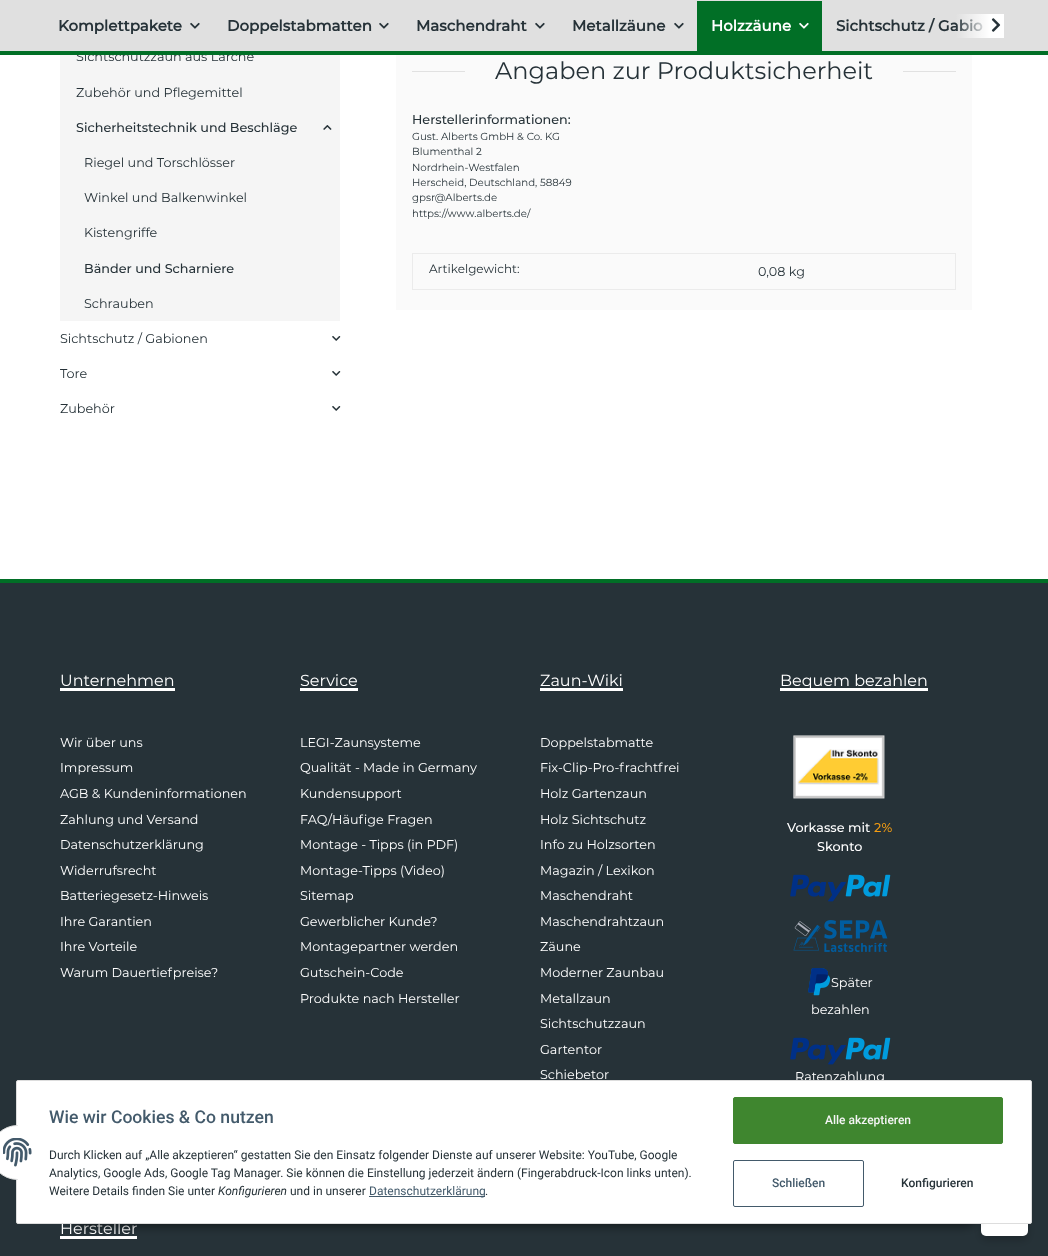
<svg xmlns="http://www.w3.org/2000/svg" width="1048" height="1256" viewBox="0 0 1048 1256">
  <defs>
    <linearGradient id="g1" gradientUnits="userSpaceOnUse" x1="956" y1="26" x2="1004" y2="26"><stop offset="0" stop-color="#ffffff" stop-opacity="0.01"/><stop offset="0.7" stop-color="#ffffff"/></linearGradient>
    <filter id="blur1" x="-50%" y="-200%" width="200%" height="500%"><feGaussianBlur stdDeviation="4"/></filter>
    <filter id="blur2" x="-50%" y="-200%" width="200%" height="500%"><feGaussianBlur stdDeviation="5"/></filter>
  </defs>
  <rect width="100%" height="100%" fill="#ffffff"/>
  <rect x="0" y="0" width="1048" height="51" fill="#e0e0e0"/>
  <rect x="60" y="55" width="280" height="266" fill="#f5f5f5"/>
  <text x="76" y="61" font-family="Montserrat" font-size="12.75" fill="#263238">Sichtschutzzaun aus Lärche</text>
  <rect x="0" y="51" width="1048" height="4" fill="#016f26"/>
  <text x="836" y="31" font-family="Montserrat" font-size="15" font-weight="bold" fill="#263238">Sichtschutz / Gabio</text>
  <rect x="956" y="14" width="48" height="24" fill="url(#g1)"/>
  <image x="991" y="18" width="10" height="14" href="img1.png"/>
  <text x="58" y="31" font-family="Montserrat" font-size="15" font-weight="bold" fill="#263238">Komplettpakete</text>
  <image x="190" y="22" width="10" height="7" href="img2.png"/>
  <text x="227" y="31" font-family="Montserrat" font-size="15" font-weight="bold" fill="#263238">Doppelstabmatten</text>
  <image x="379" y="22" width="10" height="7" href="img2.png"/>
  <text x="416" y="31" font-family="Montserrat" font-size="15" font-weight="bold" fill="#263238">Maschendraht</text>
  <image x="535" y="22" width="10" height="7" href="img2.png"/>
  <text x="572" y="31" font-family="Montserrat" font-size="15" font-weight="bold" fill="#263238">Metallzäune</text>
  <image x="674" y="22" width="10" height="7" href="img2.png"/>
  <rect x="697" y="1" width="125" height="50" fill="#016f26"/>
  <text x="711" y="31" font-family="Montserrat" font-size="15" font-weight="bold" fill="#ffffff">Holzzäune</text>
  <image x="799" y="22" width="10" height="7" href="img3.png"/>
  <text x="76" y="97" font-family="Montserrat" font-size="12.75" fill="#263238">Zubehör und Pflegemittel</text>
  <text x="76" y="132" font-family="Montserrat" font-size="12.75" font-weight="500" fill="#263238">Sicherheitstechnik und Beschläge</text>
  <image x="323" y="125" width="9" height="5" href="img4.png"/>
  <text x="84" y="167" font-family="Montserrat" font-size="12.75" fill="#263238">Riegel und Torschlösser</text>
  <text x="84" y="202" font-family="Montserrat" font-size="12.75" fill="#263238">Winkel und Balkenwinkel</text>
  <text x="84" y="237" font-family="Montserrat" font-size="12.75" fill="#263238">Kistengriffe</text>
  <text x="84" y="273" font-family="Montserrat" font-size="12.75" font-weight="500" fill="#263238">Bänder und Scharniere</text>
  <text x="84" y="308" font-family="Montserrat" font-size="12.75" fill="#263238">Schrauben</text>
  <text x="60" y="343" font-family="Montserrat" font-size="12.75" fill="#263238">Sichtschutz / Gabionen</text>
  <image x="332" y="336" width="9" height="5" href="img5.png"/>
  <text x="60" y="378" font-family="Montserrat" font-size="12.75" fill="#263238">Tore</text>
  <image x="332" y="371" width="9" height="5" href="img5.png"/>
  <text x="60" y="413" font-family="Montserrat" font-size="12.75" fill="#263238">Zubehör</text>
  <image x="332" y="406" width="9" height="5" href="img5.png"/>
  <rect x="396" y="55" width="576" height="255" fill="#fafafa"/>
  <rect x="412" y="71" width="53" height="1" fill="#e1e1e1"/>
  <text x="495" y="79" font-family="Montserrat" font-size="24" fill="#263238">Angaben zur Produktsicherheit</text>
  <rect x="903" y="71" width="53" height="1" fill="#e1e1e1"/>
  <text x="412" y="124" font-family="Montserrat" font-size="12.75" font-weight="500" fill="#263238">Herstellerinformationen:</text>
  <text x="412" y="140" font-family="Montserrat" font-size="10.25" fill="#263238">Gust. Alberts GmbH &amp; Co. KG</text>
  <text x="412" y="155" font-family="Montserrat" font-size="10.25" fill="#263238">Blumenthal 2</text>
  <text x="412" y="171" font-family="Montserrat" font-size="10.25" fill="#263238">Nordrhein-Westfalen</text>
  <text x="412" y="186" font-family="Montserrat" font-size="10.25" fill="#263238">Herscheid, Deutschland, 58849</text>
  <text x="412" y="201" font-family="Montserrat" font-size="10.25" fill="#263238">gpsr@Alberts.de</text>
  <text x="412" y="217" font-family="Montserrat" font-size="10.25" fill="#263238">https://www.alberts.de/</text>
  <rect x="412" y="253" width="544" height="1" fill="#ebebeb"/>
  <rect x="955" y="253" width="1" height="37" fill="#ebebeb"/>
  <rect x="412" y="289" width="544" height="1" fill="#ebebeb"/>
  <rect x="412" y="253" width="1" height="37" fill="#ebebeb"/>
  <text x="429" y="273" font-family="Montserrat" font-size="12" fill="#263238">Artikelgewicht:</text>
  <text x="758" y="276" font-family="Montserrat" font-size="12.75" fill="#263238">0,08 kg</text>
  <rect x="0" y="579" width="1048" height="4" fill="#016f26"/>
  <rect x="0" y="583" width="1048" height="673" fill="#263238"/>
  <text x="60" y="686" font-family="Montserrat" font-size="16" fill="#ffffff">Unternehmen</text>
  <rect x="60" y="688" width="115" height="3" fill="#ffffff"/>
  <text x="60" y="747" font-family="Montserrat" font-size="12.75" fill="#ffffff">Wir über uns</text>
  <text x="60" y="772" font-family="Montserrat" font-size="12.75" fill="#ffffff">Impressum</text>
  <text x="60" y="798" font-family="Montserrat" font-size="12.75" fill="#ffffff">AGB &amp; Kundeninformationen</text>
  <text x="60" y="824" font-family="Montserrat" font-size="12.75" fill="#ffffff">Zahlung und Versand</text>
  <text x="60" y="849" font-family="Montserrat" font-size="12.75" fill="#ffffff">Datenschutzerklärung</text>
  <text x="60" y="875" font-family="Montserrat" font-size="12.75" fill="#ffffff">Widerrufsrecht</text>
  <text x="60" y="900" font-family="Montserrat" font-size="12.75" fill="#ffffff">Batteriegesetz-Hinweis</text>
  <text x="60" y="926" font-family="Montserrat" font-size="12.75" fill="#ffffff">Ihre Garantien</text>
  <text x="60" y="951" font-family="Montserrat" font-size="12.75" fill="#ffffff">Ihre Vorteile</text>
  <text x="60" y="977" font-family="Montserrat" font-size="12.75" fill="#ffffff">Warum Dauertiefpreise?</text>
  <text x="300" y="686" font-family="Montserrat" font-size="16" fill="#ffffff">Service</text>
  <rect x="300" y="688" width="58" height="3" fill="#ffffff"/>
  <text x="300" y="747" font-family="Montserrat" font-size="12.75" fill="#ffffff">LEGI-Zaunsysteme</text>
  <text x="300" y="772" font-family="Montserrat" font-size="12.75" fill="#ffffff">Qualität - Made in Germany</text>
  <text x="300" y="798" font-family="Montserrat" font-size="12.75" fill="#ffffff">Kundensupport</text>
  <text x="300" y="824" font-family="Montserrat" font-size="12.75" fill="#ffffff">FAQ/Häufige Fragen</text>
  <text x="300" y="849" font-family="Montserrat" font-size="12.75" fill="#ffffff">Montage - Tipps (in PDF)</text>
  <text x="300" y="875" font-family="Montserrat" font-size="12.75" fill="#ffffff">Montage-Tipps (Video)</text>
  <text x="300" y="900" font-family="Montserrat" font-size="12.75" fill="#ffffff">Sitemap</text>
  <text x="300" y="926" font-family="Montserrat" font-size="12.75" fill="#ffffff">Gewerblicher Kunde?</text>
  <text x="300" y="951" font-family="Montserrat" font-size="12.75" fill="#ffffff">Montagepartner werden</text>
  <text x="300" y="977" font-family="Montserrat" font-size="12.75" fill="#ffffff">Gutschein-Code</text>
  <text x="300" y="1003" font-family="Montserrat" font-size="12.75" fill="#ffffff">Produkte nach Hersteller</text>
  <text x="540" y="686" font-family="Montserrat" font-size="16" fill="#ffffff">Zaun-Wiki</text>
  <rect x="540" y="688" width="83" height="3" fill="#ffffff"/>
  <text x="540" y="747" font-family="Montserrat" font-size="12.75" fill="#ffffff">Doppelstabmatte</text>
  <text x="540" y="772" font-family="Montserrat" font-size="12.75" fill="#ffffff">Fix-Clip-Pro-frachtfrei</text>
  <text x="540" y="798" font-family="Montserrat" font-size="12.75" fill="#ffffff">Holz Gartenzaun</text>
  <text x="540" y="824" font-family="Montserrat" font-size="12.75" fill="#ffffff">Holz Sichtschutz</text>
  <text x="540" y="849" font-family="Montserrat" font-size="12.75" fill="#ffffff">Info zu Holzsorten</text>
  <text x="540" y="875" font-family="Montserrat" font-size="12.75" fill="#ffffff">Magazin / Lexikon</text>
  <text x="540" y="900" font-family="Montserrat" font-size="12.75" fill="#ffffff">Maschendraht</text>
  <text x="540" y="926" font-family="Montserrat" font-size="12.75" fill="#ffffff">Maschendrahtzaun</text>
  <text x="540" y="951" font-family="Montserrat" font-size="12.75" fill="#ffffff">Zäune</text>
  <text x="540" y="977" font-family="Montserrat" font-size="12.75" fill="#ffffff">Moderner Zaunbau</text>
  <text x="540" y="1003" font-family="Montserrat" font-size="12.75" fill="#ffffff">Metallzaun</text>
  <text x="540" y="1028" font-family="Montserrat" font-size="12.75" fill="#ffffff">Sichtschutzzaun</text>
  <text x="540" y="1054" font-family="Montserrat" font-size="12.75" fill="#ffffff">Gartentor</text>
  <text x="540" y="1079" font-family="Montserrat" font-size="12.75" fill="#ffffff">Schiebetor</text>
  <rect x="780" y="688" width="148" height="3" fill="#ffffff"/>
  <text x="780" y="686" font-family="Montserrat" font-size="16" fill="#ffffff">Bequem bezahlen</text>
  <image x="793" y="735" width="92" height="64" href="img6.png"/>
  <text x="787" y="832" font-family="Montserrat" font-size="12.75" font-weight="500" fill="#ffffff">Vorkasse mit</text>
  <text x="874" y="832" font-family="Montserrat" font-size="12.75" font-weight="500" fill="#f39c12">2%</text>
  <text x="817" y="851" font-family="Montserrat" font-size="12.75" font-weight="500" fill="#ffffff">Skonto</text>
  <image x="790" y="874" width="101" height="28" href="img7.png"/>
  <image x="793" y="920" width="95" height="32" href="img8.png"/>
  <image x="808" y="968" width="23" height="28" href="img9.png"/>
  <text x="831" y="987" font-family="Montserrat" font-size="12.75" fill="#ffffff">Später</text>
  <text x="811" y="1014" font-family="Montserrat" font-size="12.75" fill="#ffffff">bezahlen</text>
  <image x="790" y="1037" width="101" height="28" href="img7.png"/>
  <text x="795" y="1081" font-family="Montserrat" font-size="12.75" fill="#ffffff">Ratenzahlung</text>
  <text x="60" y="1234" font-family="Montserrat" font-size="16" fill="#ffffff">Hersteller</text>
  <rect x="60" y="1236" width="77" height="3" fill="#ffffff"/>
  <rect x="981" y="1196" width="47" height="44" rx="5" fill="#000000" fill-opacity="0.2" filter="url(#blur1)"/>
  <rect x="981" y="1192" width="47" height="44" rx="5" fill="#ffffff"/>
  <rect x="68" y="1195" width="912" height="32" rx="16" fill="#000000" fill-opacity="0.45" filter="url(#blur2)"/>
  <rect x="16.5" y="1080.5" width="1015" height="143" rx="1.5" fill="#ffffff" stroke="#dddddd"/>
  <circle cx="17.5" cy="1152.5" r="27" fill="#ffffff" stroke="#dddddd"/>
  <rect x="18" y="1125" width="27" height="55" fill="#ffffff"/>
  <image x="3" y="1138" width="29" height="29" href="img10.png"/>
  <text x="49" y="1123" font-family="Roboto" font-size="17.6" font-weight="500" fill="#435a6b">Wie wir Cookies &amp; Co nutzen</text>
  <text x="49" y="1159" font-family="Roboto" font-size="12" fill="#263238">Durch Klicken auf „Alle akzeptieren“ gestatten Sie den Einsatz folgender Dienste auf unserer Website: YouTube, Google</text>
  <text x="49" y="1177" font-family="Roboto" font-size="12" fill="#263238">Analytics, Google Ads, Google Tag Manager. Sie können die Einstellung jederzeit ändern (Fingerabdruck-Icon links unten).</text>
  <text x="49" y="1195" font-family="Roboto" font-size="12" fill="#263238">Weitere Details finden Sie unter</text>
  <text x="218" y="1195" font-family="Roboto" font-size="12" font-style="italic" fill="#263238">Konfigurieren</text>
  <text x="290" y="1195" font-family="Roboto" font-size="12" fill="#263238">und in unserer</text>
  <rect x="369" y="1196" width="116" height="1" fill="#435a6b"/>
  <text x="369" y="1195" font-family="Roboto" font-size="12" fill="#435a6b">Datenschutzerklärung</text>
  <text x="485" y="1195" font-family="Roboto" font-size="12" fill="#263238">.</text>
  <rect x="733.5" y="1097.5" width="269" height="46" rx="1.5" fill="#3f862f" stroke="#3f862f"/>
  <text x="825" y="1124" font-family="Roboto" font-size="12" font-weight="500" fill="#f5f5f5">Alle akzeptieren</text>
  <rect x="733.5" y="1160.5" width="130" height="46" rx="1.5" fill="none" stroke="#435a6b"/>
  <text x="772" y="1187" font-family="Roboto" font-size="12" font-weight="500" fill="#435a6b">Schließen</text>
  <text x="901" y="1187" font-family="Roboto" font-size="12" font-weight="500" fill="#263238">Konfigurieren</text>
</svg>
